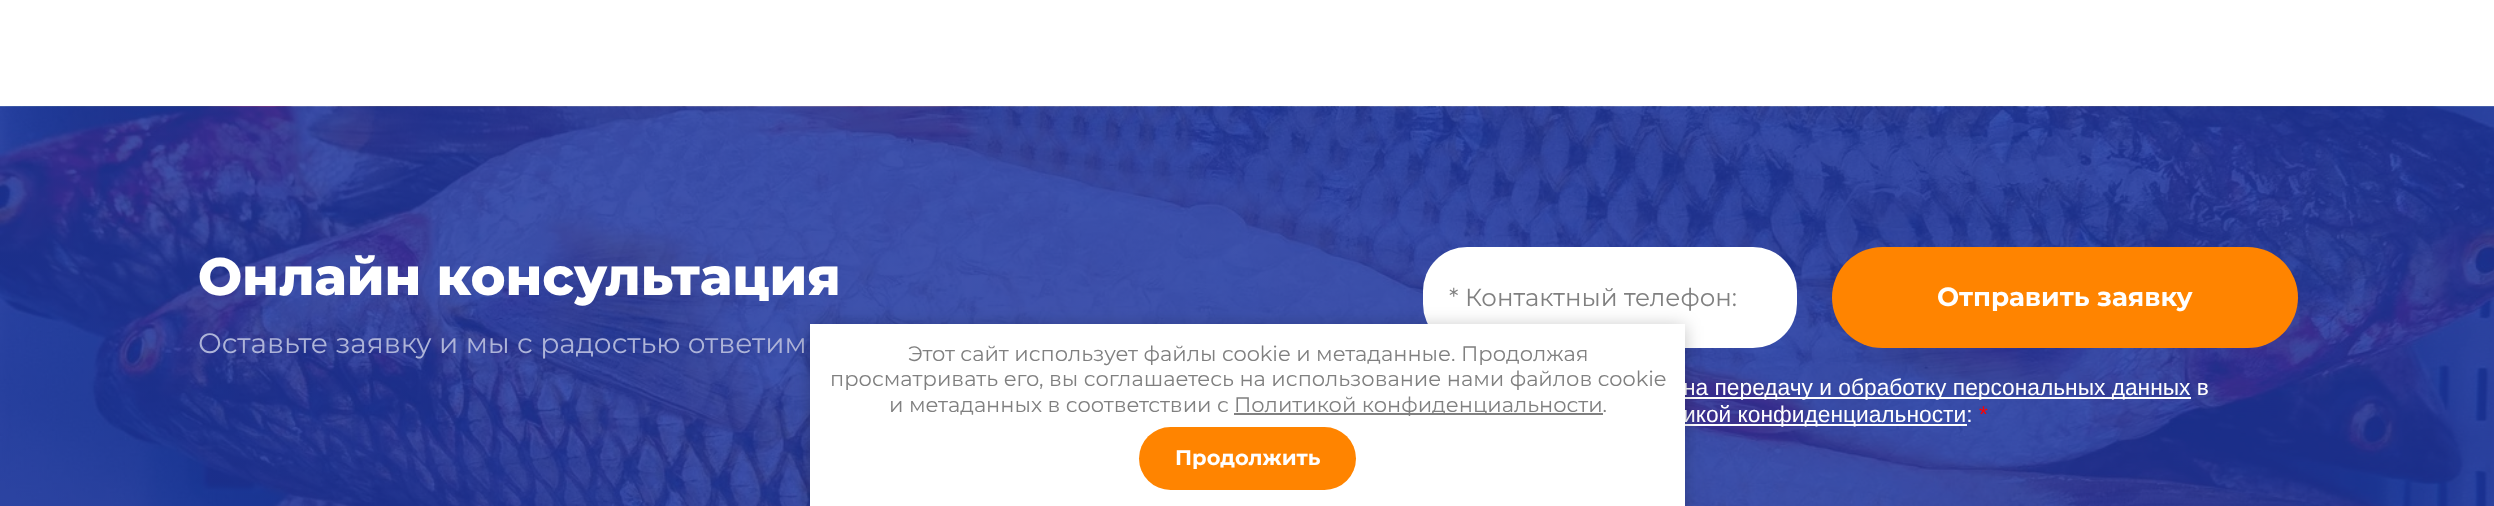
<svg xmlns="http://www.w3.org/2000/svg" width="2494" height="506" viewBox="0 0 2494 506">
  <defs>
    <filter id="blur1" x="-50%" y="-200%" width="200%" height="500%"><feGaussianBlur stdDeviation="9"/></filter>
  </defs>
  <rect width="100%" height="100%" fill="#ffffff"/>
  <image x="0" y="106" width="2494" height="400" href="img1.png"/>
  <text x="198" y="295" font-family="Montserrat" font-size="52.5" font-weight="100" fill="#ffffff">Онлайн консультация</text>
  <text x="198" y="353" font-family="Montserrat" font-size="28" fill="#aeb4d8">Оставьте заявку и мы с радостью ответим</text>
  <rect x="1423" y="247" width="374" height="101" rx="44" fill="#ffffff"/>
  <text x="1449" y="306" font-family="Montserrat" font-size="24.5" fill="#808080">* Контактный телефон:</text>
  <rect x="1832" y="247" width="466" height="101" rx="50.5" fill="#ff8400"/>
  <text x="1937" y="306" font-family="Montserrat" font-size="26.25" font-weight="bold" fill="#ffffff">Отправить заявку</text>
  <rect x="1685" y="397" width="506" height="2" fill="#ffffff"/>
  <text x="1683" y="395" font-family="Liberation Sans" font-size="22.75" fill="#ffffff">на передачу и обработку персональных данных в</text>
  <rect x="1685" y="424" width="282" height="2" fill="#ffffff"/>
  <text x="1683" y="422" font-family="Liberation Sans" font-size="22.75" fill="#ffffff">икой конфиденциальности:</text>
  <text x="1979" y="422" font-family="Liberation Sans" font-size="22.75" fill="#ff0000">*</text>
  <rect x="810" y="326" width="875" height="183" fill="#000000" fill-opacity="0.23" filter="url(#blur1)"/>
  <rect x="810" y="324" width="875" height="182" fill="#ffffff"/>
  <text x="908" y="361" font-family="Montserrat" font-size="21" fill="#808080">Этот сайт использует файлы cookie и метаданные. Продолжая</text>
  <text x="830" y="386" font-family="Montserrat" font-size="21" fill="#808080">просматривать его, вы соглашаетесь на использование нами файлов cookie</text>
  <text x="889" y="412" font-family="Montserrat" font-size="21" fill="#808080">и метаданных в соответствии с</text>
  <rect x="1234" y="413" width="369" height="2" fill="#808080"/>
  <text x="1234" y="412" font-family="Montserrat" font-size="21" fill="#808080">Политикой конфиденциальности.</text>
  <rect x="1139" y="427" width="217" height="63" rx="31.5" fill="#ff8400"/>
  <text x="1175" y="465" font-family="Montserrat" font-size="21" font-weight="bold" fill="#ffffff">Продолжить</text>
</svg>
